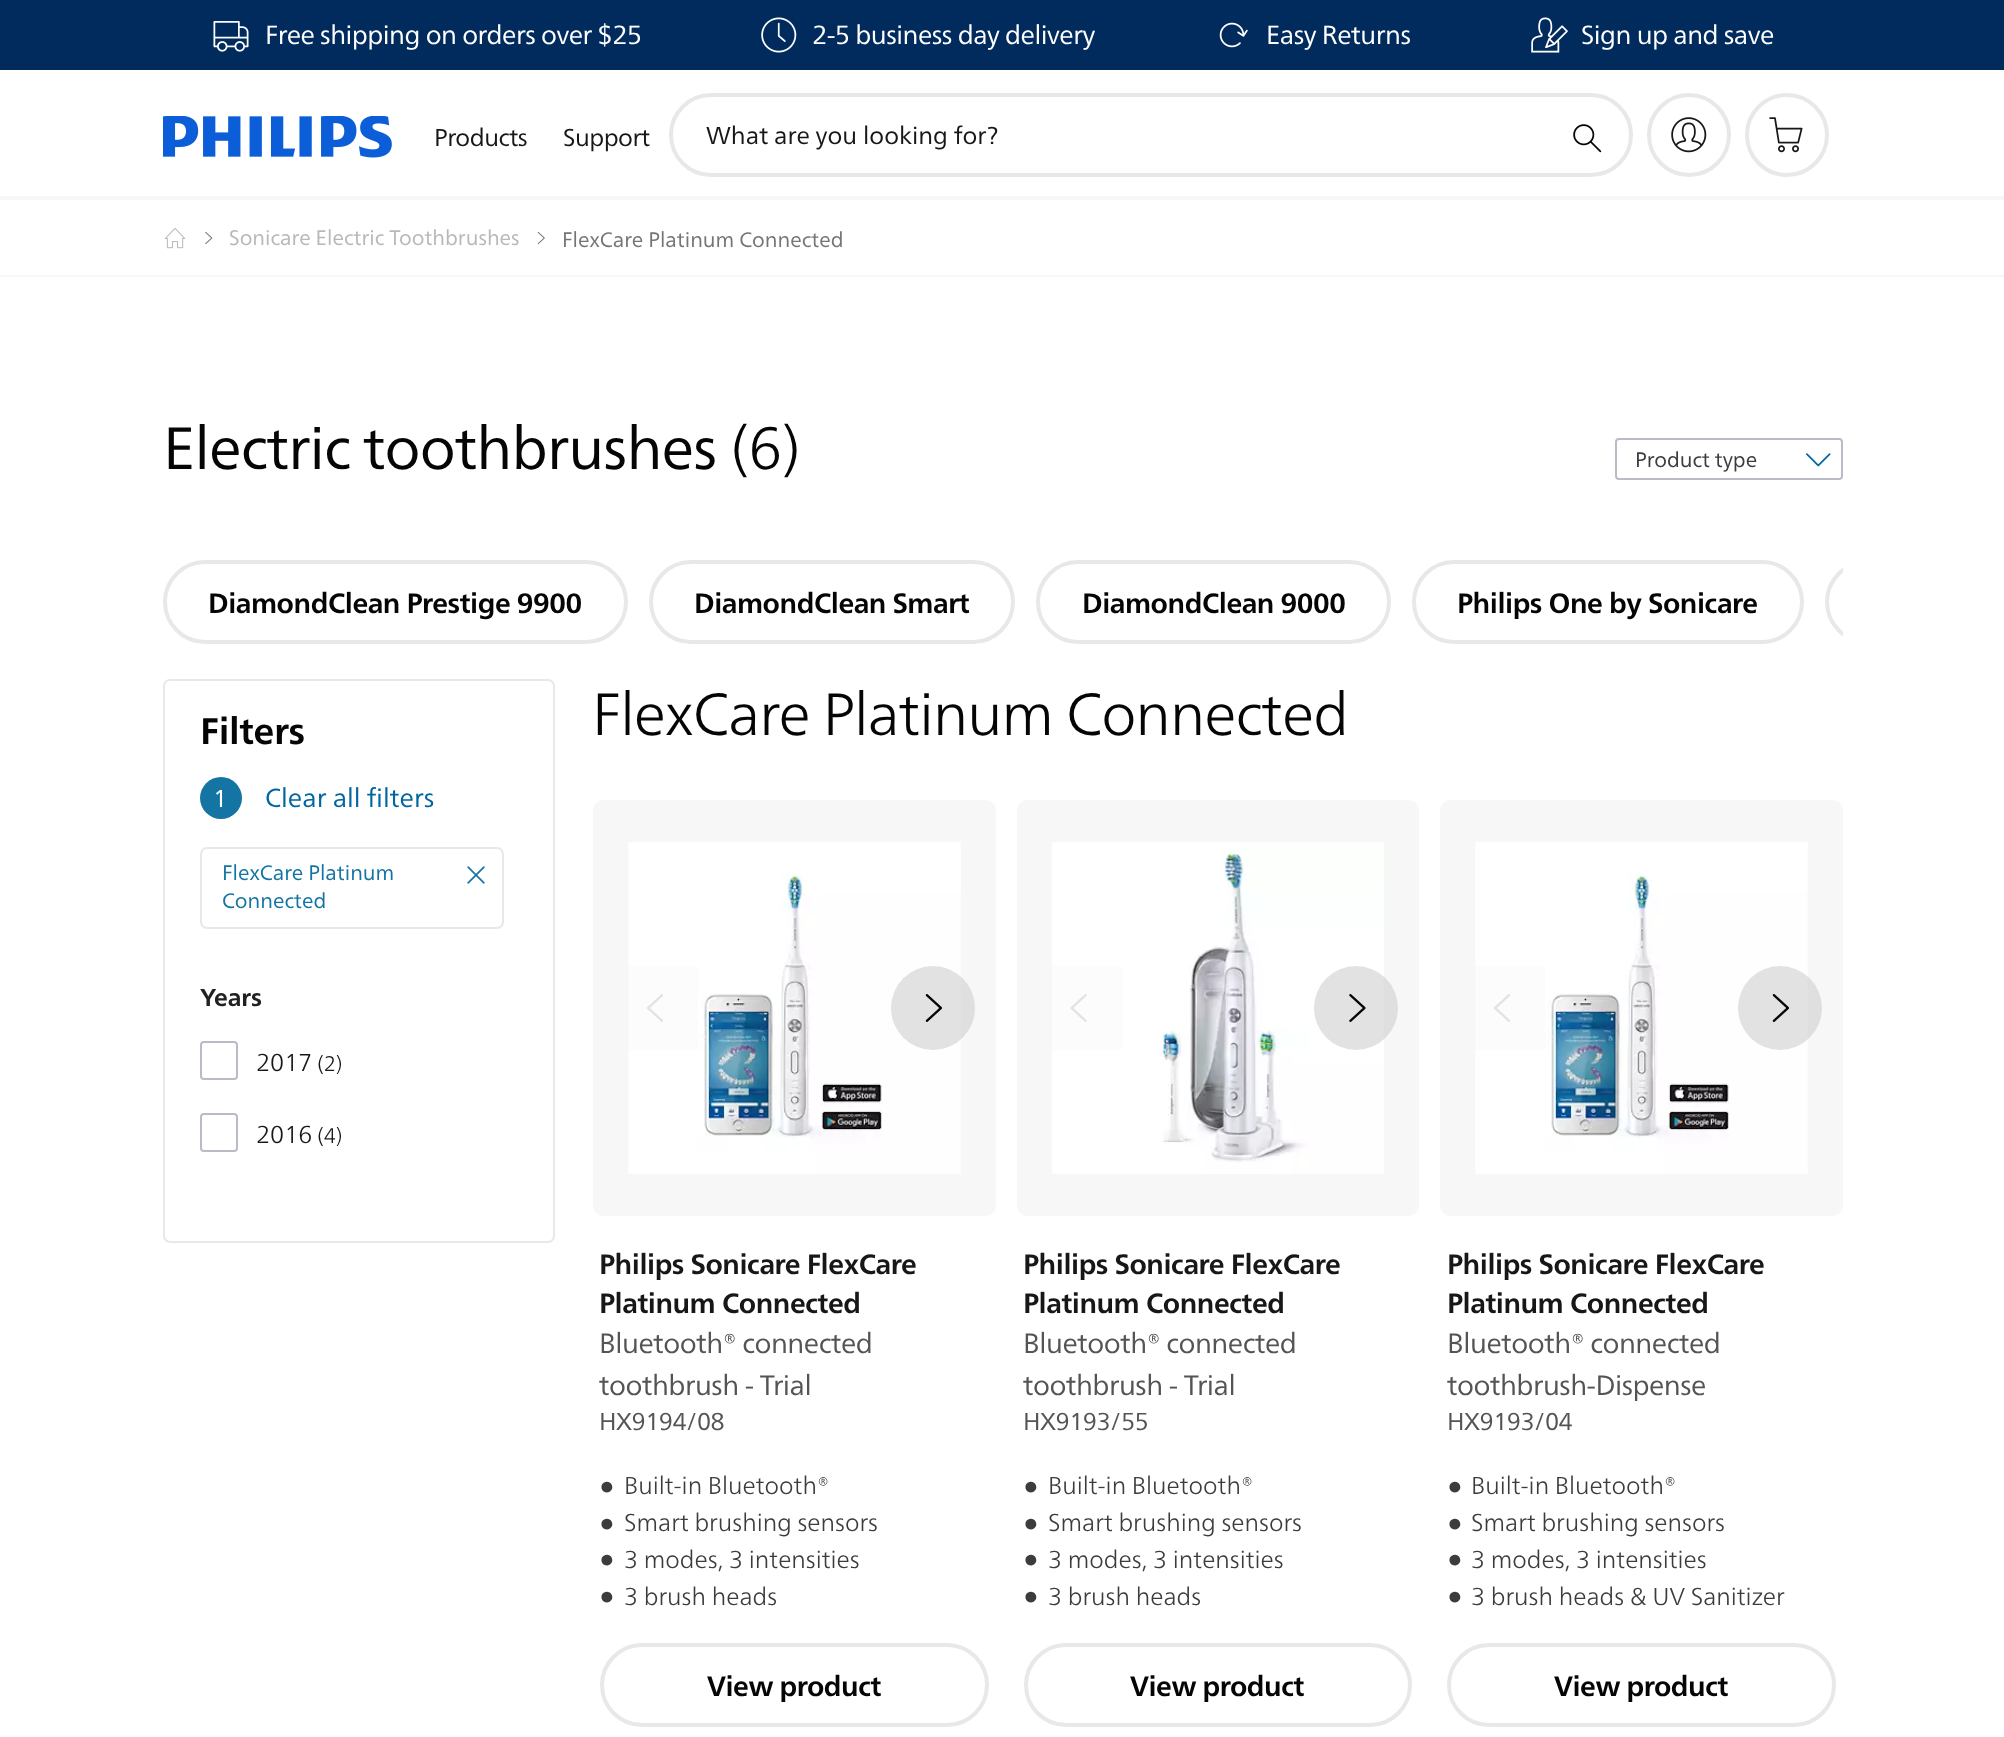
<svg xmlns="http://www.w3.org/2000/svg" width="2004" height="1737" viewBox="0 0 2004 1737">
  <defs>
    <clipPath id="clip1"><rect x="163" y="560" width="1680" height="119"/></clipPath>
  </defs>
  <rect width="100%" height="100%" fill="#ffffff"/>
  <rect x="0" y="0" width="2004" height="70" fill="#002b5c"/>
  <image x="213" y="21" width="36" height="31" href="img1.png"/>
  <text x="265" y="44" font-family="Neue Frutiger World" font-size="26.25" letter-spacing="-0.5" fill="#ffffff">Free shipping on orders over $25</text>
  <image x="761" y="17" width="36" height="36" href="img2.png"/>
  <text x="812" y="44" font-family="Neue Frutiger World" font-size="26.25" letter-spacing="-0.5" fill="#ffffff">2-5 business day delivery</text>
  <image x="1219" y="22" width="29" height="26" href="img3.png"/>
  <text x="1266" y="44" font-family="Neue Frutiger World" font-size="26.25" letter-spacing="-0.5" fill="#ffffff">Easy Returns</text>
  <image x="1531" y="17" width="37" height="36" href="img4.png"/>
  <text x="1581" y="44" font-family="Neue Frutiger World" font-size="26.25" letter-spacing="-0.5" fill="#ffffff">Sign up and save</text>
  <image x="163" y="116" width="229" height="42" href="img5.png"/>
  <text x="434" y="146" font-family="Neue Frutiger World" font-size="24.5" letter-spacing="-0.5" fill="#171717">Products</text>
  <text x="563" y="146" font-family="Neue Frutiger World" font-size="24.5" letter-spacing="-0.5" fill="#171717">Support</text>
  <rect x="0" y="196" width="2004" height="4" fill="#f7f7f7"/>
  <rect x="671" y="95" width="960" height="80" rx="40" fill="none" stroke="#e8e8e8" stroke-width="4"/>
  <text x="706" y="144" font-family="Neue Frutiger World" font-size="24.5" fill="#171717">What are you looking for?</text>
  <image x="1573" y="124" width="29" height="29" href="img6.png"/>
  <circle cx="1689" cy="135" r="40" fill="none" stroke="#e8e8e8" stroke-width="4"/>
  <image x="1671" y="117" width="36" height="36" href="img7.png"/>
  <circle cx="1787" cy="135" r="40" fill="none" stroke="#e8e8e8" stroke-width="4"/>
  <image x="1769" y="117" width="34" height="36" href="img8.png"/>
  <rect x="0" y="275" width="2004" height="2" fill="#f7f7f7"/>
  <image x="164" y="228" width="22" height="21" href="img9.png"/>
  <image x="205" y="231" width="8" height="14" href="img10.png"/>
  <text x="229" y="245" font-family="Neue Frutiger World" font-size="21" fill="#b8b8b8">Sonicare Electric Toothbrushes</text>
  <image x="537" y="231" width="8" height="14" href="img11.png"/>
  <text x="562" y="247" font-family="Neue Frutiger World" font-size="21" fill="#757575">FlexCare Platinum Connected</text>
  <text x="163" y="469" font-family="Neue Frutiger World" font-size="59.5" letter-spacing="-0.9" fill="#050505">Electric toothbrushes</text>
  <text x="730" y="469" font-family="Neue Frutiger World" font-size="59.5" font-weight="300" letter-spacing="-0.9" fill="#050505">(6)</text>
  <rect x="1616" y="439" width="226" height="40" rx="3" fill="none" stroke="#b9bbc7" stroke-width="2"/>
  <text x="1635" y="467" font-family="Neue Frutiger World" font-size="21" fill="#3c3c3c">Product type</text>
  <image x="1806" y="453" width="25" height="14" href="img12.png"/>
  <rect x="165" y="562" width="461" height="80" rx="40" fill="none" stroke="#e8e8e8" stroke-width="4"/>
  <text x="208" y="613" font-family="Neue Frutiger World" font-size="28" font-weight="bold" letter-spacing="-0.45" fill="#050505">DiamondClean Prestige 9900</text>
  <rect x="651" y="562" width="362" height="80" rx="40" fill="none" stroke="#e8e8e8" stroke-width="4"/>
  <text x="694" y="613" font-family="Neue Frutiger World" font-size="28" font-weight="bold" letter-spacing="-0.45" fill="#050505">DiamondClean Smart</text>
  <rect x="1038" y="562" width="351" height="80" rx="40" fill="none" stroke="#e8e8e8" stroke-width="4"/>
  <text x="1082" y="613" font-family="Neue Frutiger World" font-size="28" font-weight="bold" letter-spacing="-0.45" fill="#050505">DiamondClean 9000</text>
  <rect x="1414" y="562" width="388" height="80" rx="40" fill="none" stroke="#e8e8e8" stroke-width="4"/>
  <text x="1457" y="613" font-family="Neue Frutiger World" font-size="28" font-weight="bold" letter-spacing="-0.45" fill="#050505">Philips One by Sonicare</text>
  <g clip-path="url(#clip1)">
    <rect x="1827" y="562" width="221" height="80" rx="40" fill="none" stroke="#e8e8e8" stroke-width="4"/>
  </g>
  <rect x="164" y="680" width="390" height="562" rx="6" fill="none" stroke="#e8e8e8" stroke-width="2"/>
  <text x="200" y="744" font-family="Neue Frutiger World" font-size="37" font-weight="bold" letter-spacing="-0.25" fill="#050505">Filters</text>
  <circle cx="221" cy="798" r="21" fill="#1474a4"/>
  <text x="213" y="807" font-family="Neue Frutiger World" font-size="24.5" fill="#ffffff">1</text>
  <text x="265" y="807" font-family="Neue Frutiger World" font-size="26.25" fill="#0066a1">Clear all filters</text>
  <rect x="201" y="848" width="302" height="80" rx="6" fill="none" stroke="#e8e8e8" stroke-width="2"/>
  <text x="222" y="880" font-family="Neue Frutiger World" font-size="21" fill="#1474a4">FlexCare Platinum</text>
  <image x="467" y="866" width="18" height="18" href="img13.png"/>
  <text x="222" y="908" font-family="Neue Frutiger World" font-size="21" fill="#1474a4">Connected</text>
  <text x="200" y="1006" font-family="Neue Frutiger World" font-size="24.5" font-weight="bold" fill="#212121">Years</text>
  <rect x="201" y="1042" width="36" height="37" rx="3" fill="none" stroke="#b9bbc7" stroke-width="2"/>
  <text x="256" y="1071" font-family="Neue Frutiger World" font-size="24.5" font-weight="300" fill="#171717">2017</text>
  <text x="317" y="1071" font-family="Neue Frutiger World" font-size="21" font-weight="300" fill="#171717">(2)</text>
  <rect x="201" y="1114" width="36" height="37" rx="3" fill="none" stroke="#b9bbc7" stroke-width="2"/>
  <text x="256" y="1143" font-family="Neue Frutiger World" font-size="24.5" font-weight="300" fill="#171717">2016</text>
  <text x="317" y="1143" font-family="Neue Frutiger World" font-size="21" font-weight="300" fill="#171717">(4)</text>
  <text x="592" y="735" font-family="Neue Frutiger World" font-size="59.5" font-weight="300" letter-spacing="-0.9" fill="#050505">FlexCare Platinum Connected</text>
  <rect x="593" y="800" width="403" height="416" rx="11" fill="#f7f7f7"/>
  <image x="628" y="842" width="333" height="332" href="img14.png"/>
  <rect x="628" y="966" width="70" height="84" fill="#d1d1d1" fill-opacity="0.06"/>
  <image x="647" y="994" width="16" height="28" href="img15.png"/>
  <circle cx="933" cy="1008" r="42" fill="#d1d1d1" fill-opacity="0.64"/>
  <image x="925" y="994" width="17" height="28" href="img16.png"/>
  <text x="599" y="1274" font-family="Neue Frutiger World" font-size="28" font-weight="bold" letter-spacing="-0.45" fill="#171717">Philips Sonicare FlexCare</text>
  <text x="599" y="1313" font-family="Neue Frutiger World" font-size="28" font-weight="bold" letter-spacing="-0.45" fill="#171717">Platinum Connected</text>
  <text x="599" y="1353" font-family="Neue Frutiger World" font-size="28" letter-spacing="-0.5" fill="#545454">Bluetooth® connected</text>
  <text x="599" y="1395" font-family="Neue Frutiger World" font-size="28" letter-spacing="-0.5" fill="#545454">toothbrush - Trial</text>
  <text x="599" y="1430" font-family="Neue Frutiger World" font-size="24.5" letter-spacing="-0.5" fill="#545454">HX9194/08</text>
  <text x="599" y="1498" font-family="Neue Frutiger World" font-size="32" fill="#3c3c3c">•</text>
  <text x="624" y="1494" font-family="Neue Frutiger World" font-size="24.5" font-weight="300" fill="#3c3c3c">Built-in Bluetooth®</text>
  <text x="599" y="1535" font-family="Neue Frutiger World" font-size="32" fill="#3c3c3c">•</text>
  <text x="624" y="1531" font-family="Neue Frutiger World" font-size="24.5" font-weight="300" fill="#3c3c3c">Smart brushing sensors</text>
  <text x="599" y="1571" font-family="Neue Frutiger World" font-size="32" fill="#3c3c3c">•</text>
  <text x="624" y="1568" font-family="Neue Frutiger World" font-size="24.5" font-weight="300" fill="#3c3c3c">3 modes, 3 intensities</text>
  <text x="599" y="1608" font-family="Neue Frutiger World" font-size="32" fill="#3c3c3c">•</text>
  <text x="624" y="1605" font-family="Neue Frutiger World" font-size="24.5" font-weight="300" fill="#3c3c3c">3 brush heads</text>
  <rect x="602" y="1645" width="385" height="80" rx="40" fill="none" stroke="#e8e8e8" stroke-width="4"/>
  <text x="707" y="1696" font-family="Neue Frutiger World" font-size="28" font-weight="bold" letter-spacing="-0.45" fill="#050505">View product</text>
  <rect x="1017" y="800" width="402" height="416" rx="11" fill="#f7f7f7"/>
  <image x="1052" y="842" width="332" height="332" href="img17.png"/>
  <rect x="1052" y="966" width="70" height="84" fill="#d1d1d1" fill-opacity="0.06"/>
  <image x="1070" y="994" width="17" height="28" href="img18.png"/>
  <circle cx="1356" cy="1008" r="42" fill="#d1d1d1" fill-opacity="0.64"/>
  <image x="1349" y="994" width="17" height="28" href="img19.png"/>
  <text x="1023" y="1274" font-family="Neue Frutiger World" font-size="28" font-weight="bold" letter-spacing="-0.45" fill="#171717">Philips Sonicare FlexCare</text>
  <text x="1023" y="1313" font-family="Neue Frutiger World" font-size="28" font-weight="bold" letter-spacing="-0.45" fill="#171717">Platinum Connected</text>
  <text x="1023" y="1353" font-family="Neue Frutiger World" font-size="28" letter-spacing="-0.5" fill="#545454">Bluetooth® connected</text>
  <text x="1023" y="1395" font-family="Neue Frutiger World" font-size="28" letter-spacing="-0.5" fill="#545454">toothbrush - Trial</text>
  <text x="1023" y="1430" font-family="Neue Frutiger World" font-size="24.5" letter-spacing="-0.5" fill="#545454">HX9193/55</text>
  <text x="1023" y="1498" font-family="Neue Frutiger World" font-size="32" fill="#3c3c3c">•</text>
  <text x="1048" y="1494" font-family="Neue Frutiger World" font-size="24.5" font-weight="300" fill="#3c3c3c">Built-in Bluetooth®</text>
  <text x="1023" y="1535" font-family="Neue Frutiger World" font-size="32" fill="#3c3c3c">•</text>
  <text x="1048" y="1531" font-family="Neue Frutiger World" font-size="24.5" font-weight="300" fill="#3c3c3c">Smart brushing sensors</text>
  <text x="1023" y="1571" font-family="Neue Frutiger World" font-size="32" fill="#3c3c3c">•</text>
  <text x="1048" y="1568" font-family="Neue Frutiger World" font-size="24.5" font-weight="300" fill="#3c3c3c">3 modes, 3 intensities</text>
  <text x="1023" y="1608" font-family="Neue Frutiger World" font-size="32" fill="#3c3c3c">•</text>
  <text x="1048" y="1605" font-family="Neue Frutiger World" font-size="24.5" font-weight="300" fill="#3c3c3c">3 brush heads</text>
  <rect x="1026" y="1645" width="384" height="80" rx="40" fill="none" stroke="#e8e8e8" stroke-width="4"/>
  <text x="1130" y="1696" font-family="Neue Frutiger World" font-size="28" font-weight="bold" letter-spacing="-0.45" fill="#050505">View product</text>
  <rect x="1440" y="800" width="403" height="416" rx="11" fill="#f7f7f7"/>
  <image x="1475" y="842" width="333" height="332" href="img14.png"/>
  <rect x="1475" y="966" width="70" height="84" fill="#d1d1d1" fill-opacity="0.06"/>
  <image x="1494" y="994" width="16" height="28" href="img15.png"/>
  <circle cx="1780" cy="1008" r="42" fill="#d1d1d1" fill-opacity="0.64"/>
  <image x="1772" y="994" width="17" height="28" href="img16.png"/>
  <text x="1447" y="1274" font-family="Neue Frutiger World" font-size="28" font-weight="bold" letter-spacing="-0.45" fill="#171717">Philips Sonicare FlexCare</text>
  <text x="1447" y="1313" font-family="Neue Frutiger World" font-size="28" font-weight="bold" letter-spacing="-0.45" fill="#171717">Platinum Connected</text>
  <text x="1447" y="1353" font-family="Neue Frutiger World" font-size="28" letter-spacing="-0.5" fill="#545454">Bluetooth® connected</text>
  <text x="1447" y="1395" font-family="Neue Frutiger World" font-size="28" letter-spacing="-0.5" fill="#545454">toothbrush-Dispense</text>
  <text x="1447" y="1430" font-family="Neue Frutiger World" font-size="24.5" letter-spacing="-0.5" fill="#545454">HX9193/04</text>
  <text x="1447" y="1498" font-family="Neue Frutiger World" font-size="32" fill="#3c3c3c">•</text>
  <text x="1471" y="1494" font-family="Neue Frutiger World" font-size="24.5" font-weight="300" fill="#3c3c3c">Built-in Bluetooth®</text>
  <text x="1447" y="1535" font-family="Neue Frutiger World" font-size="32" fill="#3c3c3c">•</text>
  <text x="1471" y="1531" font-family="Neue Frutiger World" font-size="24.5" font-weight="300" fill="#3c3c3c">Smart brushing sensors</text>
  <text x="1447" y="1571" font-family="Neue Frutiger World" font-size="32" fill="#3c3c3c">•</text>
  <text x="1471" y="1568" font-family="Neue Frutiger World" font-size="24.5" font-weight="300" fill="#3c3c3c">3 modes, 3 intensities</text>
  <text x="1447" y="1608" font-family="Neue Frutiger World" font-size="32" fill="#3c3c3c">•</text>
  <text x="1471" y="1605" font-family="Neue Frutiger World" font-size="24.5" font-weight="300" fill="#3c3c3c">3 brush heads &amp; UV Sanitizer</text>
  <rect x="1449" y="1645" width="385" height="80" rx="40" fill="none" stroke="#e8e8e8" stroke-width="4"/>
  <text x="1554" y="1696" font-family="Neue Frutiger World" font-size="28" font-weight="bold" letter-spacing="-0.45" fill="#050505">View product</text>
</svg>
